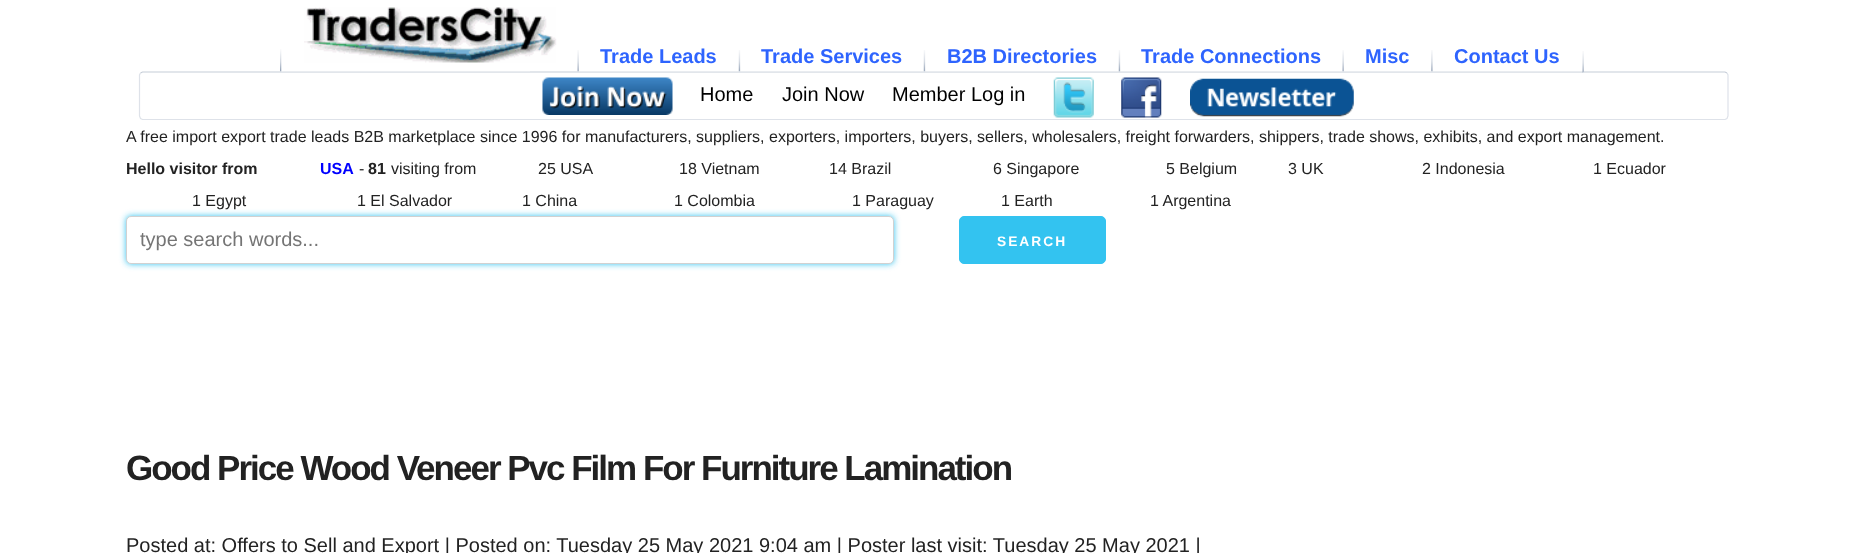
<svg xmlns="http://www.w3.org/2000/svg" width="1852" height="553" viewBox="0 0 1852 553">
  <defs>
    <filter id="blur1" x="-50%" y="-200%" width="200%" height="500%"><feGaussianBlur stdDeviation="3"/></filter>
  </defs>
  <rect width="100%" height="100%" fill="#ffffff"/>
  <path d="M140.5 73L142.5 72H1725L1727 73" fill="none" stroke="#c6cdd8" stroke-width="1.2"/>
  <image x="577" y="50" width="163" height="22" href="img1.png"/>
  <text x="600" y="63" font-family="Liberation Sans" font-size="20" font-weight="bold" fill="#2e64fe">Trade Leads</text>
  <image x="738" y="50" width="187" height="22" href="img2.png"/>
  <text x="761" y="63" font-family="Liberation Sans" font-size="20" font-weight="bold" fill="#2e64fe">Trade Services</text>
  <image x="923" y="50" width="196" height="22" href="img3.png"/>
  <text x="947" y="63" font-family="Liberation Sans" font-size="20" font-weight="bold" fill="#2e64fe">B2B Directories</text>
  <image x="1118" y="50" width="226" height="22" href="img4.png"/>
  <text x="1141" y="63" font-family="Liberation Sans" font-size="20" font-weight="bold" fill="#2e64fe">Trade Connections</text>
  <image x="1342" y="50" width="91" height="22" href="img5.png"/>
  <text x="1365" y="63" font-family="Liberation Sans" font-size="20" font-weight="bold" fill="#2e64fe">Misc</text>
  <image x="1431" y="50" width="152" height="22" href="img6.png"/>
  <text x="1454" y="63" font-family="Liberation Sans" font-size="20" font-weight="bold" fill="#2e64fe">Contact Us</text>
  <path d="M1727 73L1728 75V116L1727 118.5L1725 119.5H142.5L140.5 118.5L139.5 116V75L140.5 73" fill="none" stroke="#dee2e9" stroke-width="1.2"/>
  <rect x="1583" y="71" width="1" height="2" fill="#ffffff"/>
  <image x="1582" y="51" width="2" height="22" href="img7.png"/>
  <image x="280" y="49" width="250" height="23" href="img8.png"/>
  <image x="304" y="7" width="253" height="56" href="img9.png"/>
  <image x="542" y="77" width="131" height="38" href="img10.png"/>
  <text x="700" y="101" font-family="Liberation Sans" font-size="20" fill="#000000">Home</text>
  <text x="782" y="101" font-family="Liberation Sans" font-size="20" fill="#000000">Join Now</text>
  <text x="892" y="101" font-family="Liberation Sans" font-size="20" fill="#000000">Member Log in</text>
  <image x="1053" y="77" width="41" height="41" href="img11.png"/>
  <image x="1121" y="77" width="41" height="41" href="img12.png"/>
  <image x="1190" y="78" width="164" height="39" href="img13.png"/>
  <text x="126" y="142" font-family="Liberation Sans" font-size="16" fill="#222222">A free import export trade leads B2B marketplace since 1996 for manufacturers, suppliers, exporters, importers, buyers, sellers, wholesalers, freight forwarders, shippers, trade shows, exhibits, and export management.</text>
  <text x="126" y="174" font-family="Liberation Sans" font-size="16" font-weight="bold" fill="#222222">Hello visitor from</text>
  <text x="320" y="174" font-family="Liberation Sans" font-size="16" font-weight="bold" fill="#0000ff">USA</text>
  <text x="359" y="174" font-family="Liberation Sans" font-size="16" fill="#222222">-</text>
  <text x="368" y="174" font-family="Liberation Sans" font-size="16" font-weight="bold" fill="#222222">81</text>
  <text x="391" y="174" font-family="Liberation Sans" font-size="16" fill="#222222">visiting from</text>
  <text x="538" y="174" font-family="Liberation Sans" font-size="16" fill="#222222">25 USA</text>
  <text x="679" y="174" font-family="Liberation Sans" font-size="16" fill="#222222">18 Vietnam</text>
  <text x="829" y="174" font-family="Liberation Sans" font-size="16" fill="#222222">14 Brazil</text>
  <text x="993" y="174" font-family="Liberation Sans" font-size="16" fill="#222222">6 Singapore</text>
  <text x="1166" y="174" font-family="Liberation Sans" font-size="16" fill="#222222">5 Belgium</text>
  <text x="1288" y="174" font-family="Liberation Sans" font-size="16" fill="#222222">3 UK</text>
  <text x="1422" y="174" font-family="Liberation Sans" font-size="16" fill="#222222">2 Indonesia</text>
  <text x="1593" y="174" font-family="Liberation Sans" font-size="16" fill="#222222">1 Ecuador</text>
  <text x="192" y="206" font-family="Liberation Sans" font-size="16" fill="#222222">1 Egypt</text>
  <text x="357" y="206" font-family="Liberation Sans" font-size="16" fill="#222222">1 El Salvador</text>
  <text x="522" y="206" font-family="Liberation Sans" font-size="16" fill="#222222">1 China</text>
  <text x="674" y="206" font-family="Liberation Sans" font-size="16" fill="#222222">1 Colombia</text>
  <text x="852" y="206" font-family="Liberation Sans" font-size="16" fill="#222222">1 Paraguay</text>
  <text x="1001" y="206" font-family="Liberation Sans" font-size="16" fill="#222222">1 Earth</text>
  <text x="1150" y="206" font-family="Liberation Sans" font-size="16" fill="#222222">1 Argentina</text>
  <rect x="126" y="216" width="768" height="48" rx="5" fill="#33c3f0" filter="url(#blur1)"/>
  <rect x="126.5" y="216.5" width="767" height="47" rx="4.5" fill="#ffffff" stroke="#d1d1d1"/>
  <text x="140" y="246" font-family="Liberation Sans" font-size="20" fill="#757575">type search words...</text>
  <rect x="959.5" y="216.5" width="146" height="47" rx="4.5" fill="#33c3f0" stroke="#33c3f0"/>
  <text x="997" y="246" font-family="Liberation Sans" font-size="13.75" font-weight="bold" letter-spacing="2" fill="#ffffff">SEARCH</text>
  <text x="126" y="480" font-family="Liberation Sans" font-size="35" font-weight="bold" letter-spacing="-2" fill="#222222">Good Price Wood Veneer Pvc Film For Furniture Lamination</text>
  <text x="126" y="552" font-family="Liberation Sans" font-size="20" fill="#222222">Posted at: Offers to Sell and Export | Posted on: Tuesday 25 May 2021 9:04 am | Poster last visit: Tuesday 25 May 2021 |</text>
</svg>
